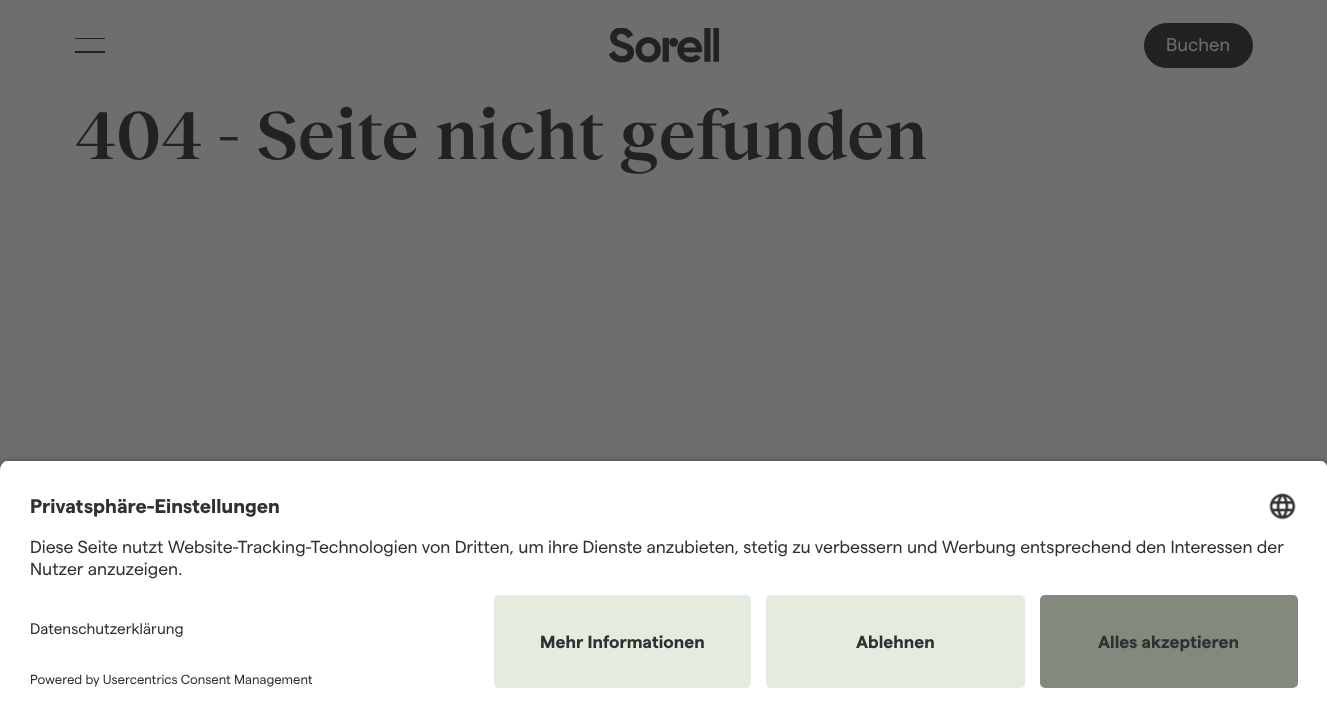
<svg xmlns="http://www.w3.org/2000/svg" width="1327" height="717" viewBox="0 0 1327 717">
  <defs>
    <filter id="blur1" x="-50%" y="-200%" width="200%" height="500%"><feGaussianBlur stdDeviation="4.5"/></filter>
    <clipPath id="clip1"><path d="M10 460H1318C1323.5 460 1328 464.5 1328 470V585H0V470C0 464.5 4.5 460 10 460Z"/></clipPath>
  </defs>
  <rect width="100%" height="100%" fill="#6e6e6e"/>
  <rect x="75" y="38" width="30" height="1" fill="#222222"/>
  <rect x="75" y="51" width="30" height="2" fill="#222222"/>
  <image x="609" y="28" width="110" height="35" href="img1.png"/>
  <rect x="1144.5" y="23.5" width="108" height="44" rx="22" fill="#222222" stroke="#222222"/>
  <text x="1166" y="51" font-family="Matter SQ" font-size="18.5" fill="#6e6e6e">Buchen</text>
  <text x="75" y="159" font-family="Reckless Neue" font-size="70" font-weight="600" fill="#222222">404 - Seite nicht gefunden</text>
  <rect x="0" y="464" width="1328" height="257" rx="10" fill="#000000" fill-opacity="0.8" filter="url(#blur1)"/>
  <g clip-path="url(#clip1)">
    <rect x="0" y="461" width="1327" height="124" fill="#ffffff"/>
  </g>
  <text x="30" y="513" font-family="Matter SQ" font-size="19.75" font-weight="bold" fill="#303030">Privatsphäre-Einstellungen</text>
  <image x="1269" y="493" width="27" height="27" href="img2.png"/>
  <text x="30" y="553" font-family="Matter SQ" font-size="17.5" fill="#303030">Diese Seite nutzt Website-Tracking-Technologien von Dritten, um ihre Dienste anzubieten, stetig zu verbessern und Werbung entsprechend den Interessen der</text>
  <text x="30" y="575" font-family="Matter SQ" font-size="17.5" fill="#303030">Nutzer anzuzeigen.</text>
  <rect x="0" y="585" width="1327" height="132" fill="#ffffff"/>
  <text x="30" y="634" font-family="Matter SQ" font-size="15.25" fill="#303030">Datenschutzerklärung</text>
  <text x="30" y="684" font-family="Matter SQ" font-size="13.1" fill="#303030">Powered by Usercentrics Consent Management</text>
  <rect x="494" y="595" width="257" height="93" rx="5" fill="#e4ecdf"/>
  <text x="540" y="648" font-family="Matter SQ" font-size="17.5" font-weight="bold" fill="#303030">Mehr Informationen</text>
  <rect x="766" y="595" width="259" height="93" rx="5" fill="#e4ecdf"/>
  <text x="856" y="648" font-family="Matter SQ" font-size="17.5" font-weight="bold" fill="#303030">Ablehnen</text>
  <rect x="1040" y="595" width="258" height="93" rx="5" fill="#828a7d"/>
  <text x="1098" y="648" font-family="Matter SQ" font-size="17.5" font-weight="bold" fill="#303030">Alles akzeptieren</text>
</svg>
